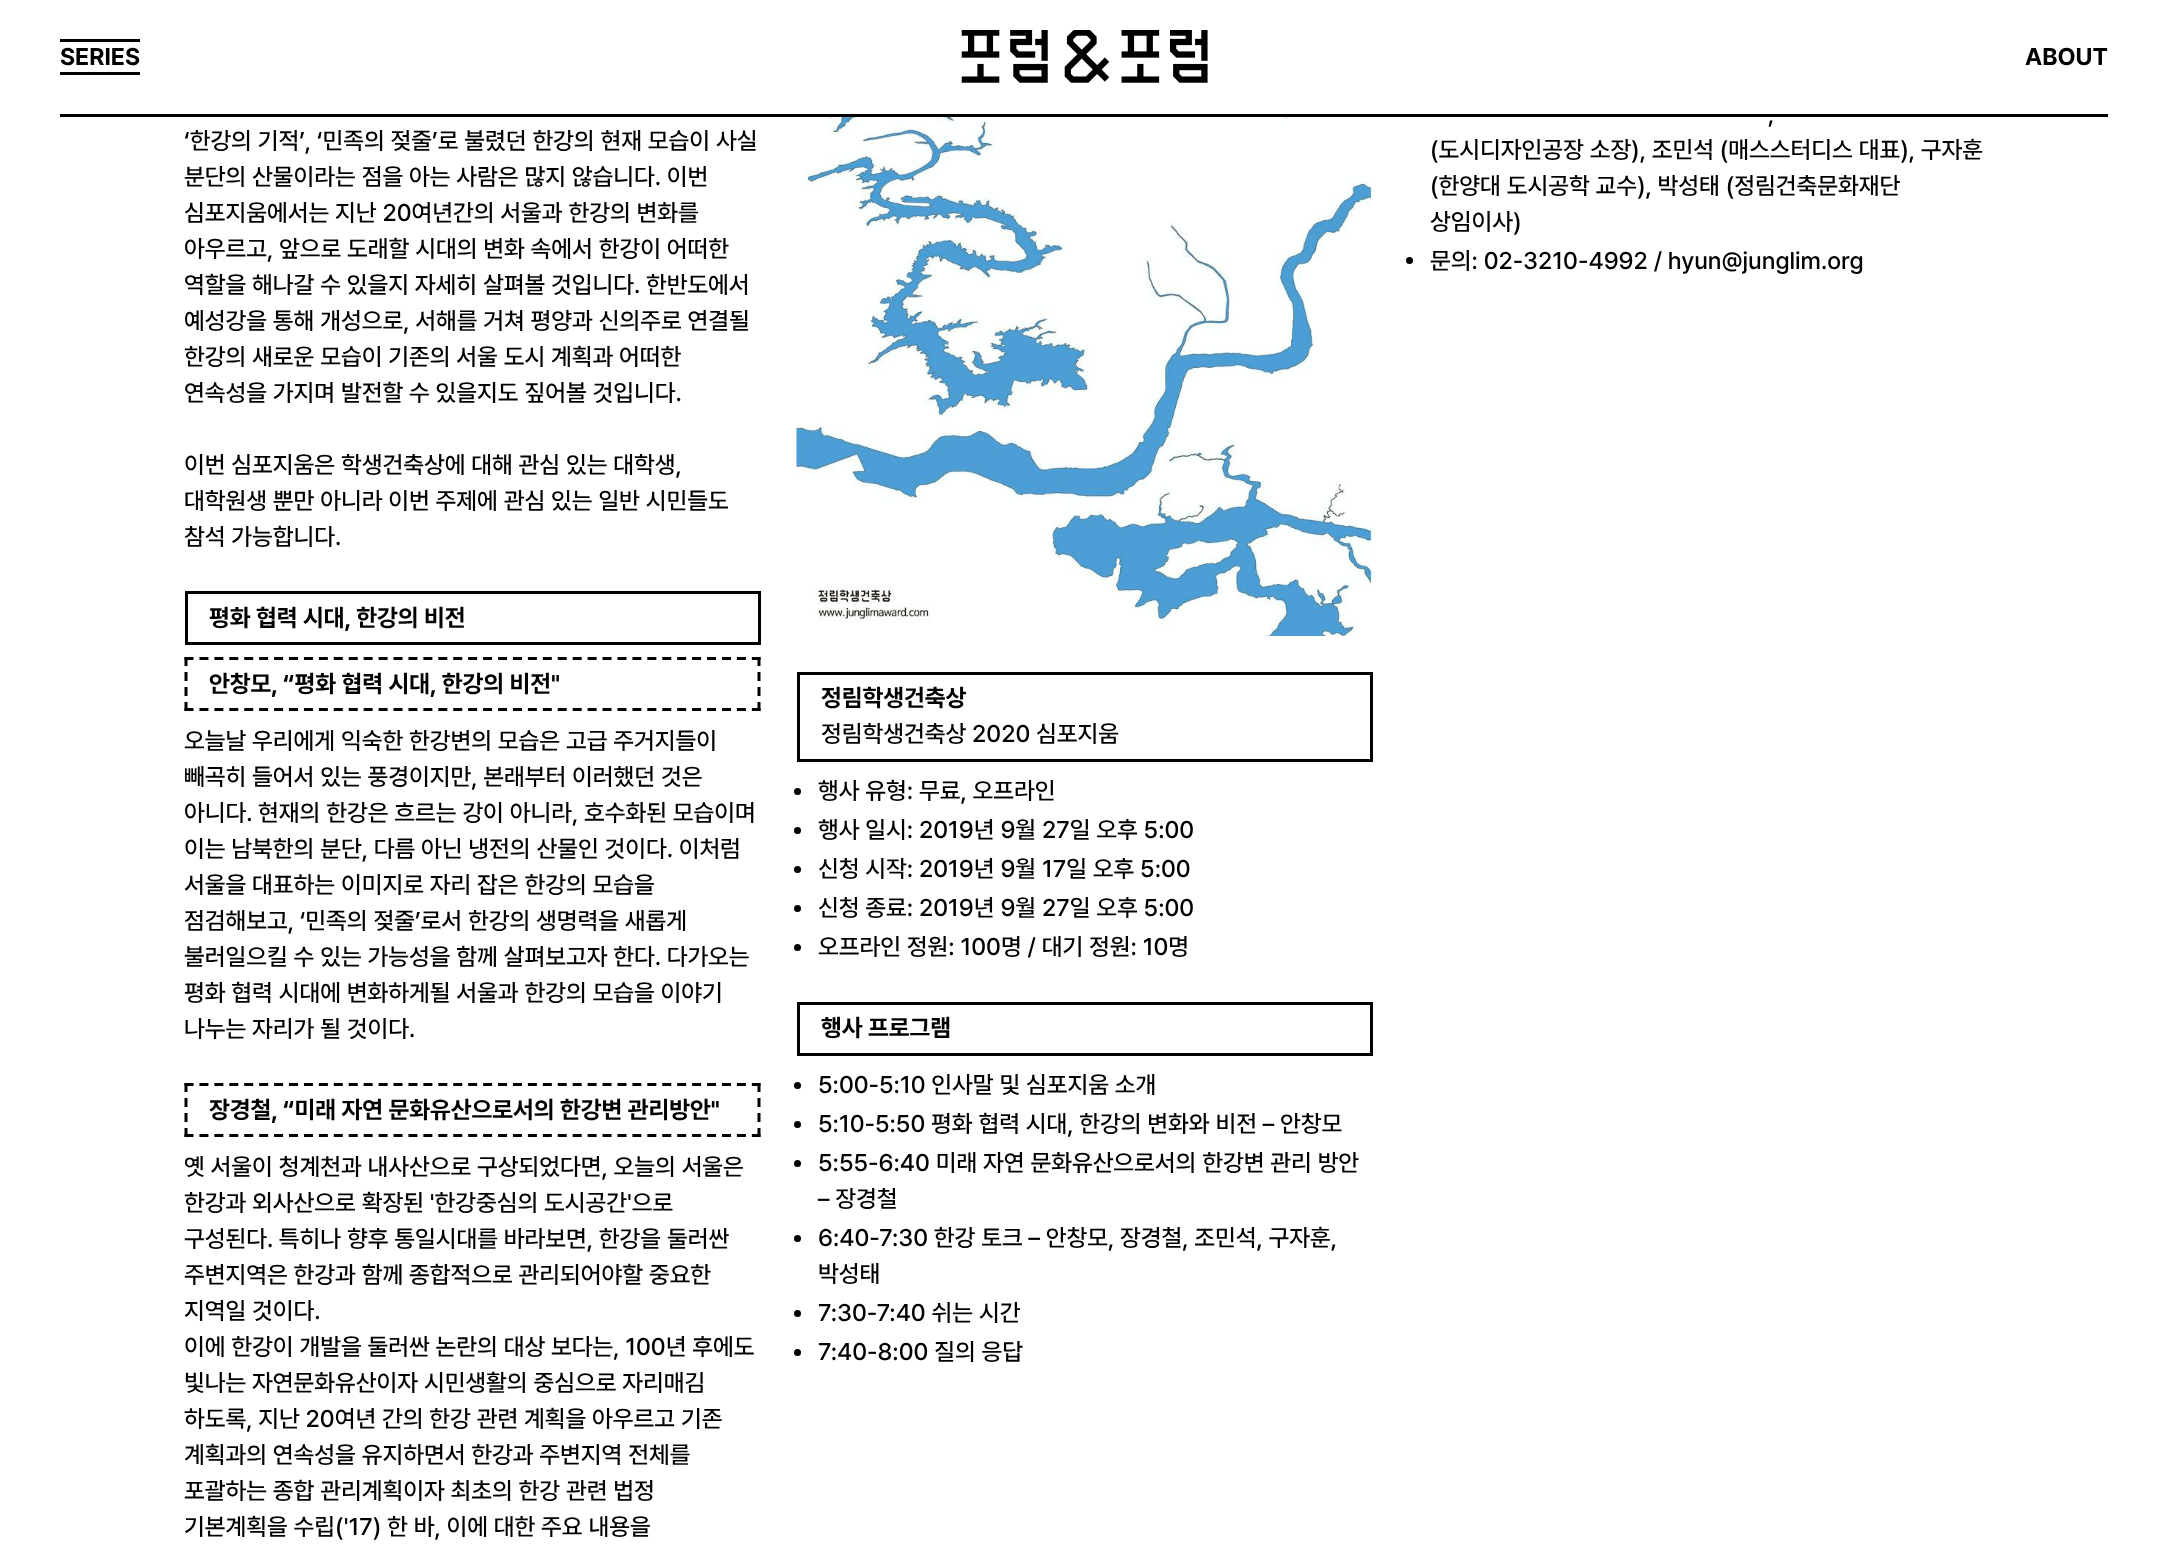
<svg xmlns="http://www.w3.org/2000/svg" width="2167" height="1553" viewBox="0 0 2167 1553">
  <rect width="100%" height="100%" fill="#ffffff"/>
  <image x="961" y="30" width="247" height="53" href="img1.png"/>
  <rect x="60" y="39" width="80" height="3" fill="#000000"/>
  <text x="60" y="65" font-family="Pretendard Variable" font-size="24" font-weight="bold" fill="#000000">SERIES</text>
  <rect x="60" y="72" width="80" height="3" fill="#000000"/>
  <text x="2025" y="65" font-family="Pretendard Variable" font-size="24" font-weight="bold" fill="#000000">ABOUT</text>
  <rect x="60" y="114" width="2048" height="3" fill="#000000"/>
  <text x="184" y="149" font-family="Pretendard Variable" font-size="24" font-weight="500" fill="#000000">‘한강의 기적’, ‘민족의 젖줄’로 불렸던 한강의 현재 모습이 사실</text>
  <text x="184" y="185" font-family="Pretendard Variable" font-size="24" font-weight="500" fill="#000000">분단의 산물이라는 점을 아는 사람은 많지 않습니다. 이번</text>
  <text x="184" y="221" font-family="Pretendard Variable" font-size="24" font-weight="500" fill="#000000">심포지움에서는 지난 20여년간의 서울과 한강의 변화를</text>
  <text x="184" y="257" font-family="Pretendard Variable" font-size="24" font-weight="500" fill="#000000">아우르고, 앞으로 도래할 시대의 변화 속에서 한강이 어떠한</text>
  <text x="184" y="293" font-family="Pretendard Variable" font-size="24" font-weight="500" fill="#000000">역할을 해나갈 수 있을지 자세히 살펴볼 것입니다. 한반도에서</text>
  <text x="184" y="329" font-family="Pretendard Variable" font-size="24" font-weight="500" fill="#000000">예성강을 통해 개성으로, 서해를 거쳐 평양과 신의주로 연결될</text>
  <text x="184" y="365" font-family="Pretendard Variable" font-size="24" font-weight="500" fill="#000000">한강의 새로운 모습이 기존의 서울 도시 계획과 어떠한</text>
  <text x="184" y="401" font-family="Pretendard Variable" font-size="24" font-weight="500" fill="#000000">연속성을 가지며 발전할 수 있을지도 짚어볼 것입니다.</text>
  <text x="184" y="473" font-family="Pretendard Variable" font-size="24" font-weight="500" fill="#000000">이번 심포지움은 학생건축상에 대해 관심 있는 대학생,</text>
  <text x="184" y="509" font-family="Pretendard Variable" font-size="24" font-weight="500" fill="#000000">대학원생 뿐만 아니라 이번 주제에 관심 있는 일반 시민들도</text>
  <text x="184" y="545" font-family="Pretendard Variable" font-size="24" font-weight="500" fill="#000000">참석 가능합니다.</text>
  <rect x="186.5" y="592.5" width="573" height="51" fill="none" stroke="#000000" stroke-width="3"/>
  <text x="209" y="626" font-family="Pretendard Variable" font-size="24" font-weight="bold" fill="#000000">평화 협력 시대, 한강의 비전</text>
  <path d="M184.5 658.5H760.5" fill="none" stroke="#000000" stroke-width="3" stroke-dasharray="9 5.93"/>
  <path d="M759 657V711" fill="none" stroke="#000000" stroke-width="3" stroke-dasharray="9 6"/>
  <path d="M184.5 709.5H760.5" fill="none" stroke="#000000" stroke-width="3" stroke-dasharray="9 5.93"/>
  <path d="M186 657V711" fill="none" stroke="#000000" stroke-width="3" stroke-dasharray="9 6"/>
  <text x="209" y="692" font-family="Pretendard Variable" font-size="24" font-weight="bold" fill="#000000">안창모, “평화 협력 시대, 한강의 비전"</text>
  <text x="184" y="749" font-family="Pretendard Variable" font-size="24" font-weight="500" fill="#000000">오늘날 우리에게 익숙한 한강변의 모습은 고급 주거지들이</text>
  <text x="184" y="785" font-family="Pretendard Variable" font-size="24" font-weight="500" fill="#000000">빼곡히 들어서 있는 풍경이지만, 본래부터 이러했던 것은</text>
  <text x="184" y="821" font-family="Pretendard Variable" font-size="24" font-weight="500" fill="#000000">아니다. 현재의 한강은 흐르는 강이 아니라, 호수화된 모습이며</text>
  <text x="184" y="857" font-family="Pretendard Variable" font-size="24" font-weight="500" fill="#000000">이는 남북한의 분단, 다름 아닌 냉전의 산물인 것이다. 이처럼</text>
  <text x="184" y="893" font-family="Pretendard Variable" font-size="24" font-weight="500" fill="#000000">서울을 대표하는 이미지로 자리 잡은 한강의 모습을</text>
  <text x="184" y="929" font-family="Pretendard Variable" font-size="24" font-weight="500" fill="#000000">점검해보고, ‘민족의 젖줄’로서 한강의 생명력을 새롭게</text>
  <text x="184" y="965" font-family="Pretendard Variable" font-size="24" font-weight="500" fill="#000000">불러일으킬 수 있는 가능성을 함께 살펴보고자 한다. 다가오는</text>
  <text x="184" y="1001" font-family="Pretendard Variable" font-size="24" font-weight="500" fill="#000000">평화 협력 시대에 변화하게될 서울과 한강의 모습을 이야기</text>
  <text x="184" y="1037" font-family="Pretendard Variable" font-size="24" font-weight="500" fill="#000000">나누는 자리가 될 것이다.</text>
  <path d="M184.5 1084.5H760.5" fill="none" stroke="#000000" stroke-width="3" stroke-dasharray="9 5.93"/>
  <path d="M759 1083V1137" fill="none" stroke="#000000" stroke-width="3" stroke-dasharray="9 6"/>
  <path d="M184.5 1135.5H760.5" fill="none" stroke="#000000" stroke-width="3" stroke-dasharray="9 5.93"/>
  <path d="M186 1083V1137" fill="none" stroke="#000000" stroke-width="3" stroke-dasharray="9 6"/>
  <text x="209" y="1118" font-family="Pretendard Variable" font-size="24" font-weight="bold" fill="#000000">장경철, “미래 자연 문화유산으로서의 한강변 관리방안"</text>
  <text x="184" y="1175" font-family="Pretendard Variable" font-size="24" font-weight="500" fill="#000000">옛 서울이 청계천과 내사산으로 구상되었다면, 오늘의 서울은</text>
  <text x="184" y="1211" font-family="Pretendard Variable" font-size="24" font-weight="500" fill="#000000">한강과 외사산으로 확장된 '한강중심의 도시공간'으로</text>
  <text x="184" y="1247" font-family="Pretendard Variable" font-size="24" font-weight="500" fill="#000000">구성된다. 특히나 향후 통일시대를 바라보면, 한강을 둘러싼</text>
  <text x="184" y="1283" font-family="Pretendard Variable" font-size="24" font-weight="500" fill="#000000">주변지역은 한강과 함께 종합적으로 관리되어야할 중요한</text>
  <text x="184" y="1319" font-family="Pretendard Variable" font-size="24" font-weight="500" fill="#000000">지역일 것이다.</text>
  <text x="184" y="1355" font-family="Pretendard Variable" font-size="24" font-weight="500" fill="#000000">이에 한강이 개발을 둘러싼 논란의 대상 보다는, 100년 후에도</text>
  <text x="184" y="1391" font-family="Pretendard Variable" font-size="24" font-weight="500" fill="#000000">빛나는 자연문화유산이자 시민생활의 중심으로 자리매김</text>
  <text x="184" y="1427" font-family="Pretendard Variable" font-size="24" font-weight="500" fill="#000000">하도록, 지난 20여년 간의 한강 관련 계획을 아우르고 기존</text>
  <text x="184" y="1463" font-family="Pretendard Variable" font-size="24" font-weight="500" fill="#000000">계획과의 연속성을 유지하면서 한강과 주변지역 전체를</text>
  <text x="184" y="1499" font-family="Pretendard Variable" font-size="24" font-weight="500" fill="#000000">포괄하는 종합 관리계획이자 최초의 한강 관련 법정</text>
  <text x="184" y="1535" font-family="Pretendard Variable" font-size="24" font-weight="500" fill="#000000">기본계획을 수립('17) 한 바, 이에 대한 주요 내용을</text>
  <image x="796" y="117" width="577" height="519" href="img2.png"/>
  <rect x="798.5" y="673.5" width="573" height="87" fill="none" stroke="#000000" stroke-width="3"/>
  <text x="821" y="706" font-family="Pretendard Variable" font-size="24" font-weight="bold" fill="#000000">정림학생건축상</text>
  <text x="821" y="742" font-family="Pretendard Variable" font-size="24" font-weight="500" fill="#000000">정림학생건축상 2020 심포지움</text>
  <circle cx="797.5" cy="791.5" r="3.5" fill="#000000"/>
  <text x="818" y="799" font-family="Pretendard Variable" font-size="24" font-weight="500" fill="#000000">행사 유형: 무료, 오프라인</text>
  <circle cx="797.5" cy="830.5" r="3.5" fill="#000000"/>
  <text x="818" y="838" font-family="Pretendard Variable" font-size="24" font-weight="500" fill="#000000">행사 일시: 2019년 9월 27일 오후 5:00</text>
  <circle cx="797.5" cy="869.5" r="3.5" fill="#000000"/>
  <text x="818" y="877" font-family="Pretendard Variable" font-size="24" font-weight="500" fill="#000000">신청 시작: 2019년 9월 17일 오후 5:00</text>
  <circle cx="797.5" cy="908.5" r="3.5" fill="#000000"/>
  <text x="818" y="916" font-family="Pretendard Variable" font-size="24" font-weight="500" fill="#000000">신청 종료: 2019년 9월 27일 오후 5:00</text>
  <circle cx="797.5" cy="947.5" r="3.5" fill="#000000"/>
  <text x="818" y="955" font-family="Pretendard Variable" font-size="24" font-weight="500" fill="#000000">오프라인 정원: 100명 / 대기 정원: 10명</text>
  <rect x="798.5" y="1003.5" width="573" height="51" fill="none" stroke="#000000" stroke-width="3"/>
  <text x="821" y="1036" font-family="Pretendard Variable" font-size="24" font-weight="bold" fill="#000000">행사 프로그램</text>
  <circle cx="797.5" cy="1085.5" r="3.5" fill="#000000"/>
  <text x="818" y="1093" font-family="Pretendard Variable" font-size="24" font-weight="500" fill="#000000">5:00-5:10 인사말 및 심포지움 소개</text>
  <circle cx="797.5" cy="1124.5" r="3.5" fill="#000000"/>
  <text x="818" y="1132" font-family="Pretendard Variable" font-size="24" font-weight="500" fill="#000000">5:10-5:50 평화 협력 시대, 한강의 변화와 비전 – 안창모</text>
  <circle cx="797.5" cy="1163.5" r="3.5" fill="#000000"/>
  <text x="818" y="1171" font-family="Pretendard Variable" font-size="24" font-weight="500" fill="#000000">5:55-6:40 미래 자연 문화유산으로서의 한강변 관리 방안</text>
  <text x="818" y="1207" font-family="Pretendard Variable" font-size="24" font-weight="500" fill="#000000">– 장경철</text>
  <circle cx="797.5" cy="1238.5" r="3.5" fill="#000000"/>
  <text x="818" y="1246" font-family="Pretendard Variable" font-size="24" font-weight="500" fill="#000000">6:40-7:30 한강 토크 – 안창모, 장경철, 조민석, 구자훈,</text>
  <text x="818" y="1282" font-family="Pretendard Variable" font-size="24" font-weight="500" fill="#000000">박성태</text>
  <circle cx="797.5" cy="1313.5" r="3.5" fill="#000000"/>
  <text x="818" y="1321" font-family="Pretendard Variable" font-size="24" font-weight="500" fill="#000000">7:30-7:40 쉬는 시간</text>
  <circle cx="797.5" cy="1352.5" r="3.5" fill="#000000"/>
  <text x="818" y="1360" font-family="Pretendard Variable" font-size="24" font-weight="500" fill="#000000">7:40-8:00 질의 응답</text>
  <text x="1768" y="122" font-family="Pretendard Variable" font-size="24" font-weight="500" fill="#000000">,</text>
  <text x="1430" y="158" font-family="Pretendard Variable" font-size="24" font-weight="500" fill="#000000">(도시디자인공장 소장), 조민석 (매스스터디스 대표), 구자훈</text>
  <text x="1430" y="194" font-family="Pretendard Variable" font-size="24" font-weight="500" fill="#000000">(한양대 도시공학 교수), 박성태 (정림건축문화재단</text>
  <text x="1430" y="230" font-family="Pretendard Variable" font-size="24" font-weight="500" fill="#000000">상임이사)</text>
  <circle cx="1409.5" cy="260.5" r="3.5" fill="#000000"/>
  <text x="1430" y="269" font-family="Pretendard Variable" font-size="24" font-weight="500" fill="#000000">문의: 02-3210-4992 / hyun@junglim.org</text>
</svg>
